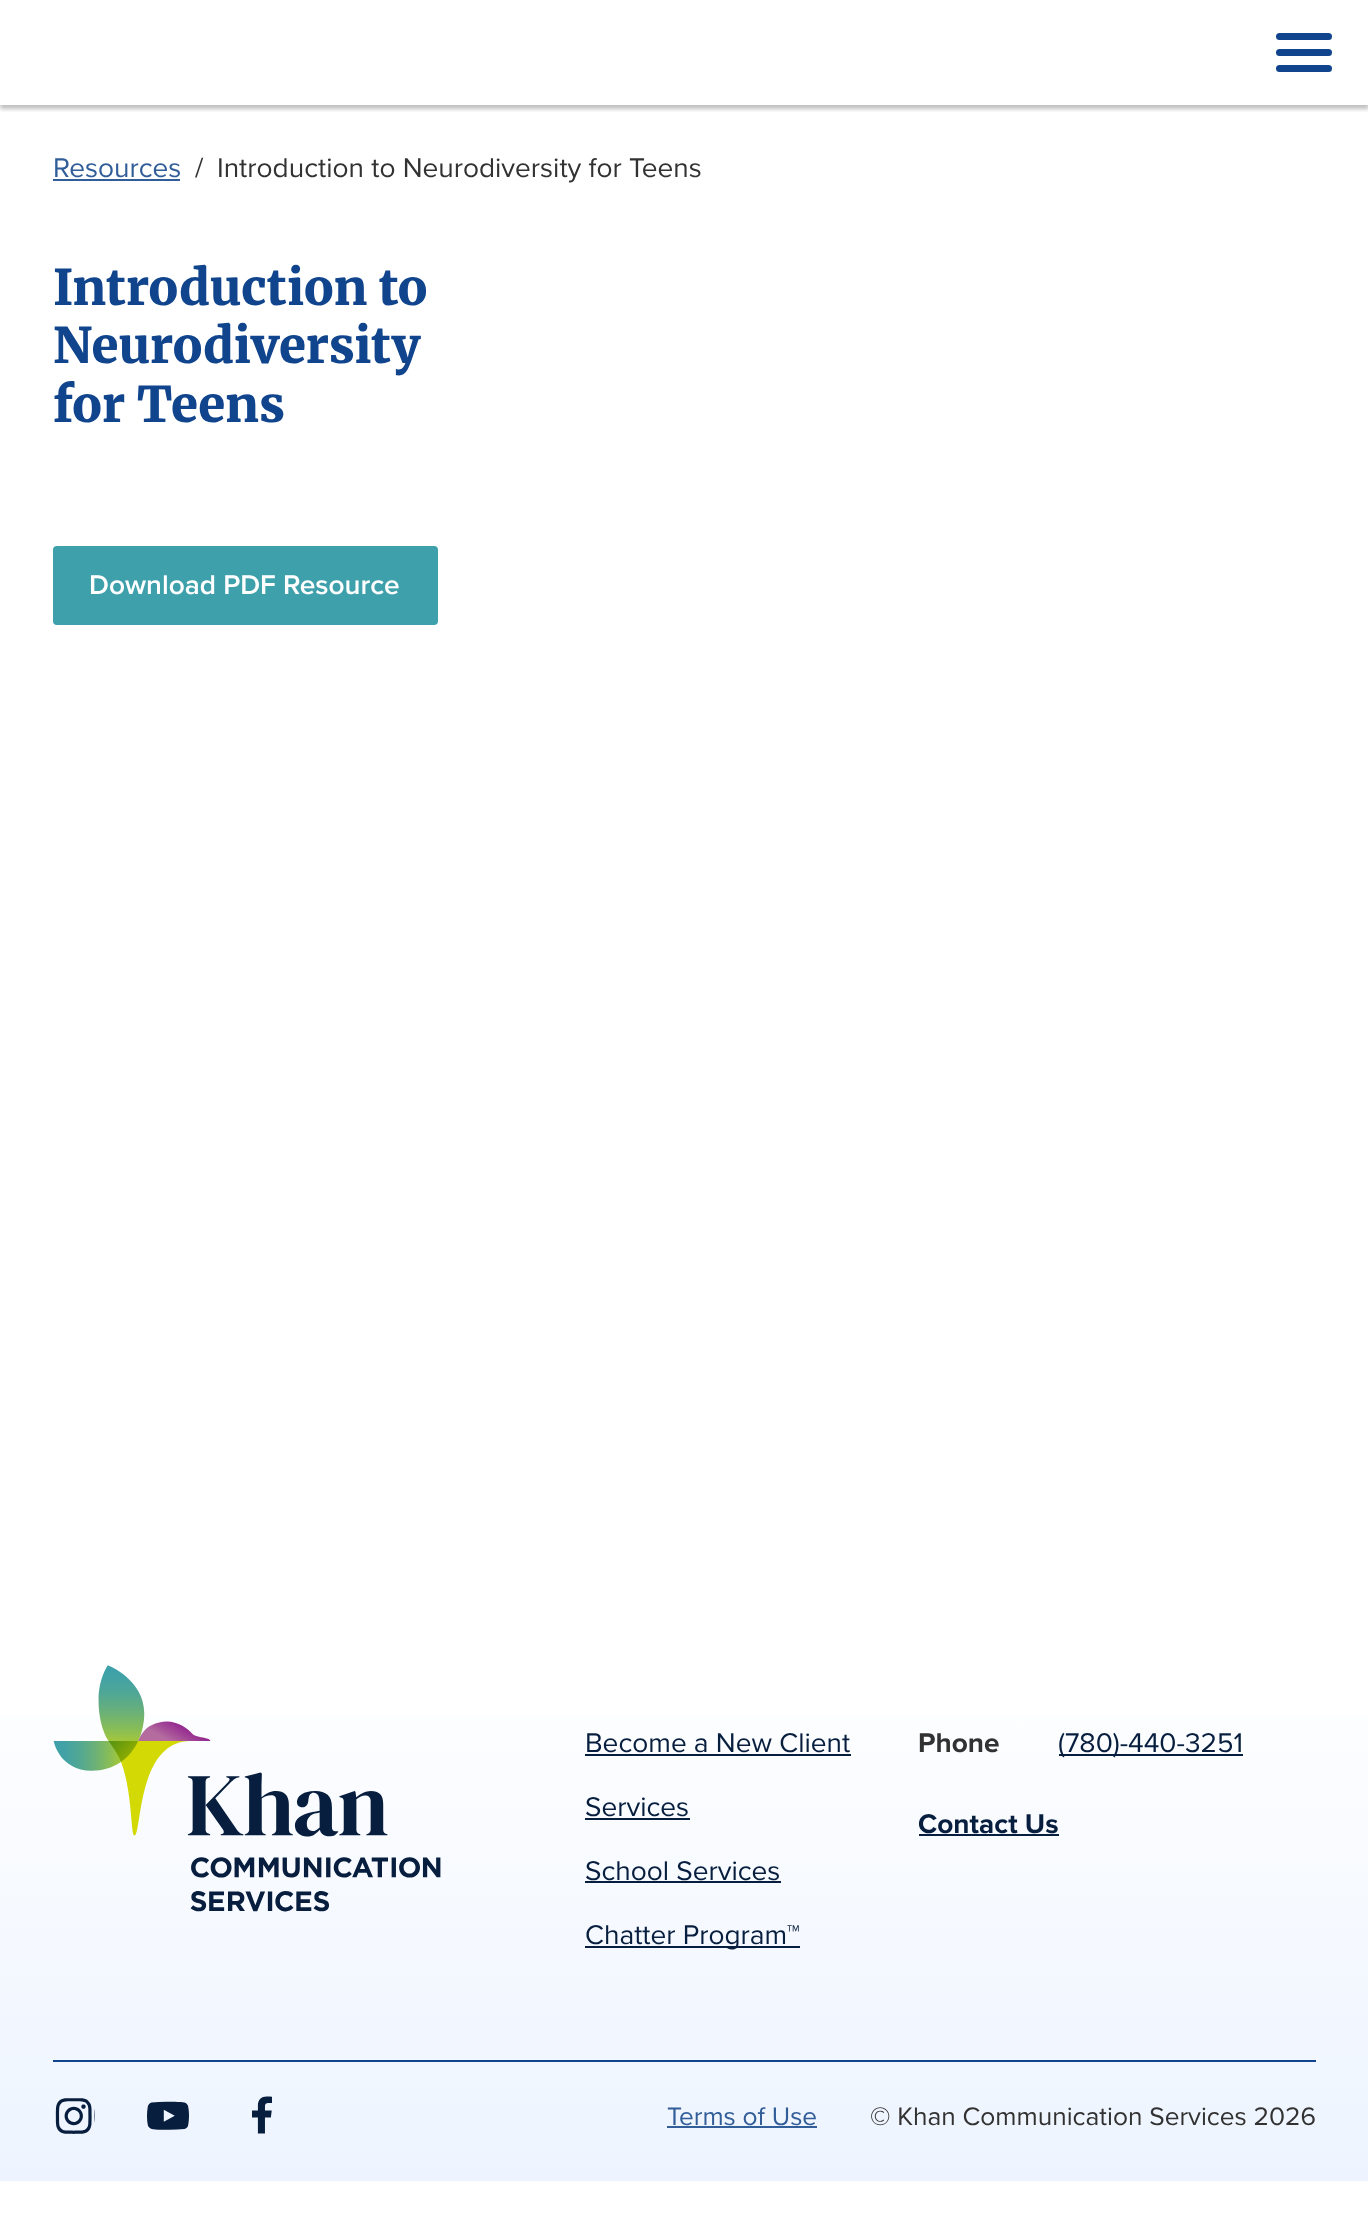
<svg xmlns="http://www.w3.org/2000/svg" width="1368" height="2225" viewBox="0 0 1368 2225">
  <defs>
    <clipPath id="clip1"><rect x="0" y="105" width="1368" height="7"/></clipPath>
    <filter id="blur1" x="-50%" y="-200%" width="200%" height="500%"><feGaussianBlur stdDeviation="2"/></filter>
    <linearGradient id="g1" gradientUnits="userSpaceOnUse" x1="684" y1="2181" x2="684" y2="1640"><stop offset="0" stop-color="#edf4ff"/><stop offset="1" stop-color="#ffffff"/></linearGradient>
  </defs>
  <rect width="100%" height="100%" fill="#ffffff"/>
  <g clip-path="url(#clip1)">
    <rect x="0" y="4" width="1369" height="105" fill="#000000" fill-opacity="0.25" filter="url(#blur1)"/>
  </g>
  <rect x="1276" y="49" width="56" height="7" rx="3.5" fill="#10448c"/>
  <rect x="1276" y="33" width="56" height="7" rx="3.5" fill="#10448c"/>
  <rect x="1276" y="65" width="56" height="7" rx="3.5" fill="#10448c"/>
  <text x="53" y="177" font-family="Proxima Nova" font-size="28" fill="#315d99">Resources</text>
  <rect x="53" y="179" width="127" height="2" fill="#315d99"/>
  <text x="195" y="177" font-family="Proxima Nova" font-size="28" fill="#323232">/</text>
  <text x="217" y="177" font-family="Proxima Nova" font-size="28" fill="#323232">Introduction to Neurodiversity for Teens</text>
  <text x="53" y="305" font-family="Merriweather" font-size="49" font-weight="900" fill="#10448c">Introduction to</text>
  <text x="53" y="363" font-family="Merriweather" font-size="49" font-weight="900" fill="#10448c">Neurodiversity</text>
  <text x="53" y="422" font-family="Merriweather" font-size="49" font-weight="900" fill="#10448c">for Teens</text>
  <rect x="54" y="547" width="383" height="77" rx="3" fill="#3da0aa" stroke="#3da0aa" stroke-width="2"/>
  <text x="89" y="594" font-family="Proxima Nova" font-size="28" font-weight="600" fill="#ffffff">Download PDF Resource</text>
  <rect x="0" y="1715" width="1368" height="466" fill="url(#g1)"/>
  <image x="53" y="1665" width="388" height="247" href="img1.png"/>
  <text x="585" y="1752" font-family="Proxima Nova" font-size="28" fill="#071e3e">Become a New Client</text>
  <rect x="585" y="1754" width="266" height="2" fill="#071e3e"/>
  <text x="585" y="1816" font-family="Proxima Nova" font-size="28" fill="#071e3e">Services</text>
  <rect x="585" y="1818" width="105" height="2" fill="#071e3e"/>
  <text x="585" y="1880" font-family="Proxima Nova" font-size="28" fill="#071e3e">School Services</text>
  <rect x="585" y="1881" width="196" height="2" fill="#071e3e"/>
  <rect x="585" y="1946" width="215" height="2" fill="#071e3e"/>
  <text x="585" y="1944" font-family="Proxima Nova" font-size="28" fill="#071e3e">Chatter Program™</text>
  <text x="918" y="1752" font-family="Proxima Nova" font-size="28" font-weight="bold" fill="#323232">Phone</text>
  <rect x="1059" y="1754" width="184" height="2" fill="#071e3e"/>
  <text x="1058" y="1752" font-family="Proxima Nova" font-size="28" fill="#071e3e">(780)-440-3251</text>
  <text x="918" y="1833" font-family="Proxima Nova" font-size="28" font-weight="bold" fill="#071e3e">Contact Us</text>
  <rect x="919" y="1834" width="140" height="2" fill="#071e3e"/>
  <rect x="53" y="2060" width="1263" height="2" fill="#10448c"/>
  <image x="55" y="2098" width="40" height="36" href="img2.png"/>
  <image x="147" y="2101" width="42" height="29" href="img3.png"/>
  <image x="252" y="2096" width="20" height="38" href="img4.png"/>
  <text x="667" y="2125" font-family="Proxima Nova" font-size="26.25" fill="#315d99">Terms of Use</text>
  <rect x="667" y="2126" width="150" height="2" fill="#315d99"/>
  <text x="870" y="2125" font-family="Proxima Nova" font-size="26.25" fill="#323232">© Khan Communication Services 2026</text>
</svg>
